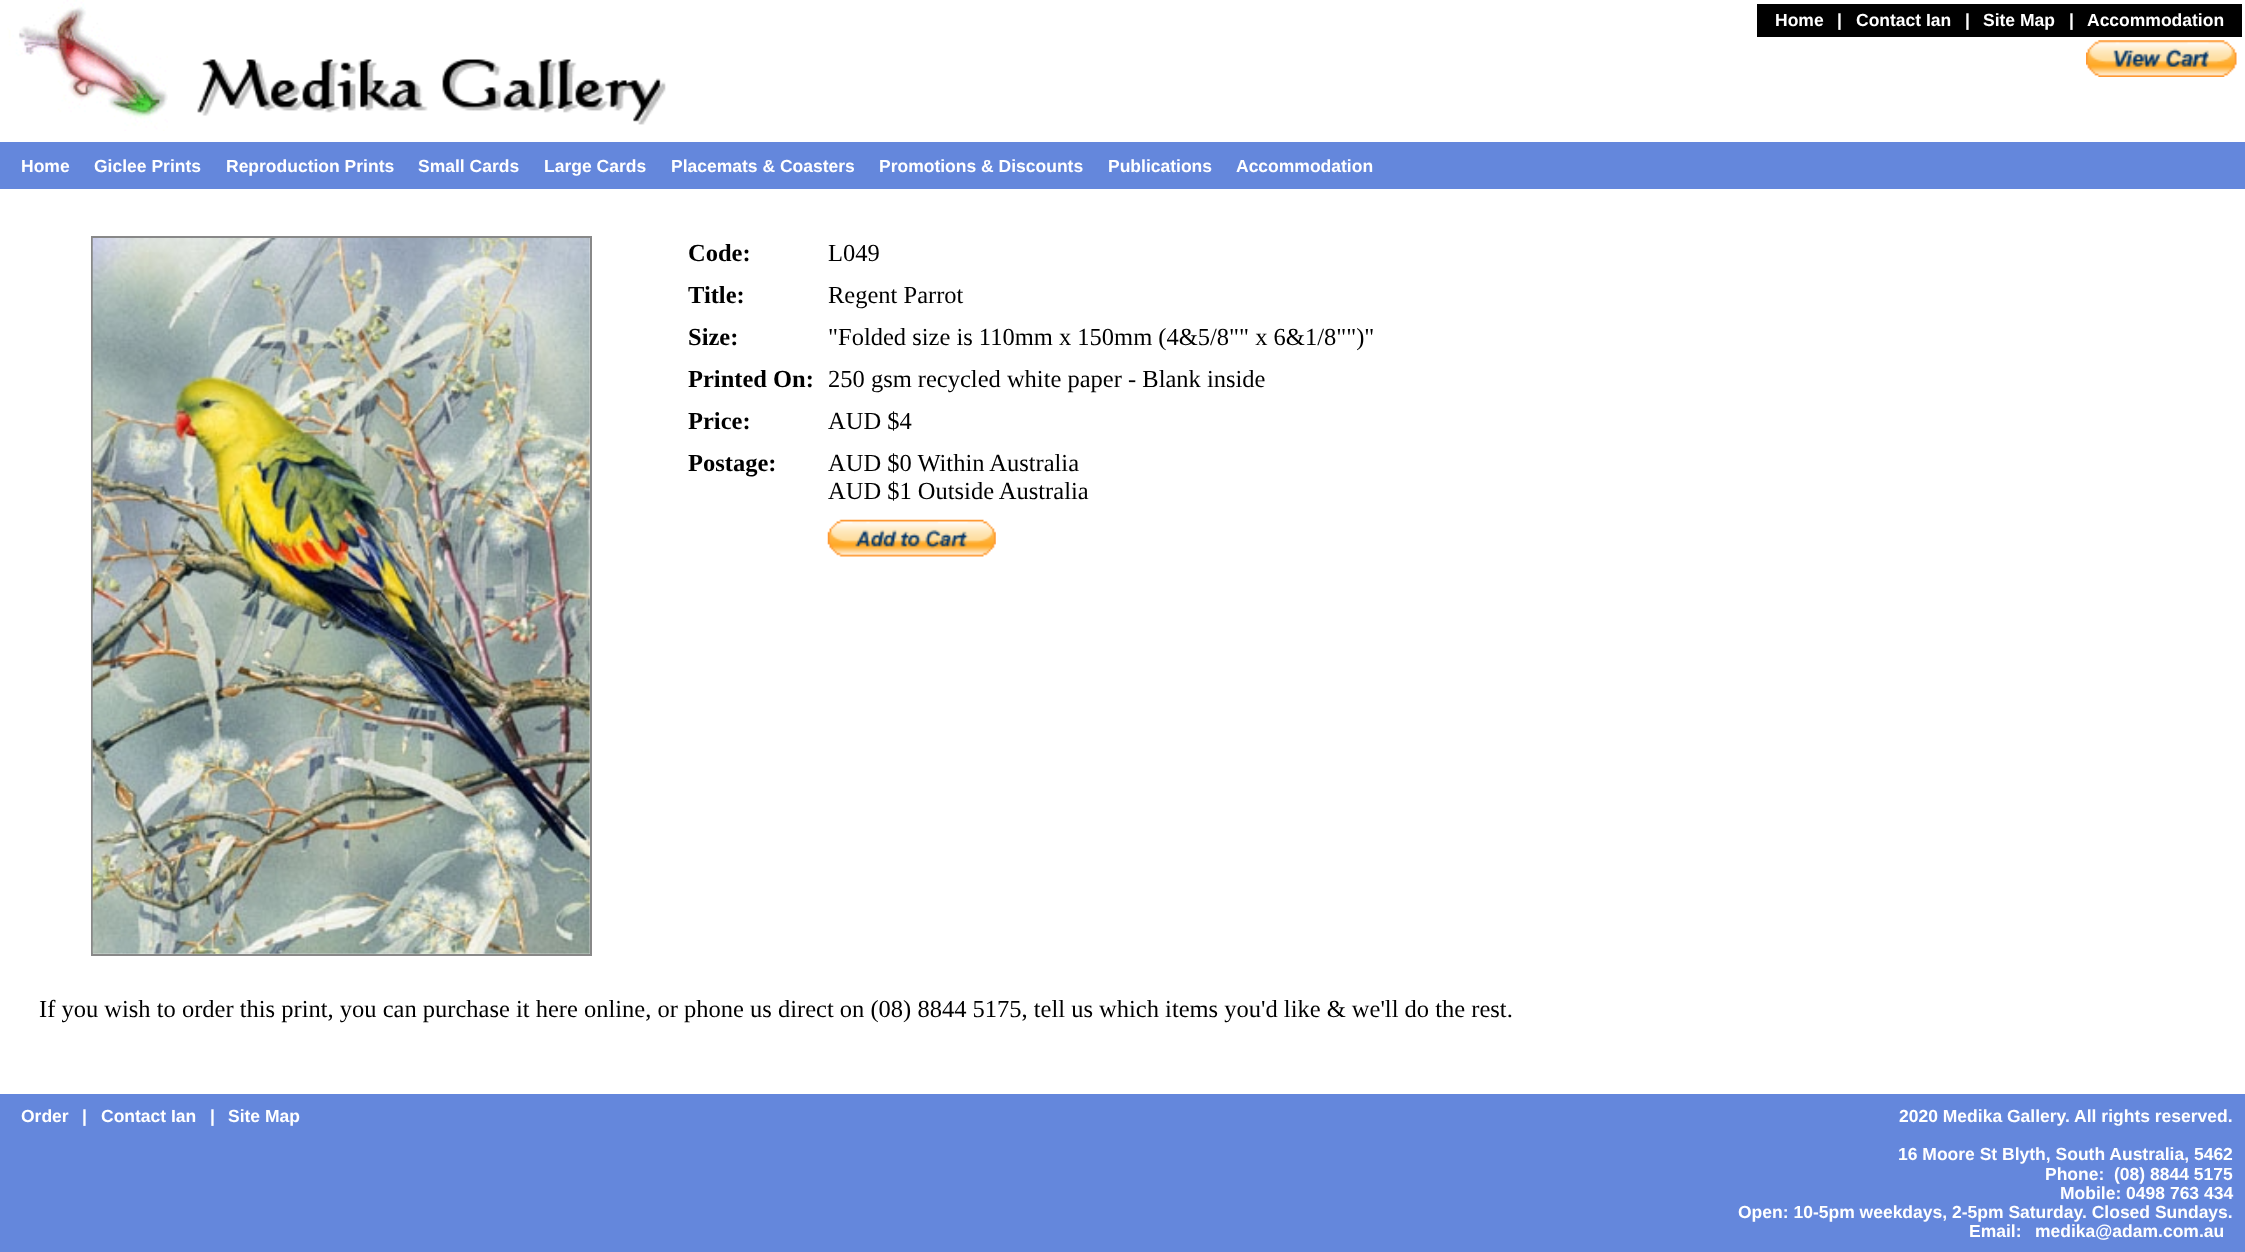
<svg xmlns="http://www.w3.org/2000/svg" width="2245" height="1252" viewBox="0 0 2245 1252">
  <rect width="100%" height="100%" fill="#ffffff"/>
  <image x="7" y="0" width="161" height="131" href="img1.png"/>
  <image x="197" y="59" width="469" height="66" href="img2.png"/>
  <rect x="1757" y="4" width="485" height="33" fill="#000000"/>
  <text x="1775" y="26" font-family="Liberation Sans" font-size="17.5" font-weight="bold" fill="#ffffff">Home</text>
  <text x="1837" y="26" font-family="Liberation Sans" font-size="17.5" font-weight="bold" fill="#ffffff">|</text>
  <text x="1856" y="26" font-family="Liberation Sans" font-size="17.5" font-weight="bold" fill="#ffffff">Contact Ian</text>
  <text x="1965" y="26" font-family="Liberation Sans" font-size="17.5" font-weight="bold" fill="#ffffff">|</text>
  <text x="1983" y="26" font-family="Liberation Sans" font-size="17.5" font-weight="bold" fill="#ffffff">Site Map</text>
  <text x="2069" y="26" font-family="Liberation Sans" font-size="17.5" font-weight="bold" fill="#ffffff">|</text>
  <text x="2087" y="26" font-family="Liberation Sans" font-size="17.5" font-weight="bold" fill="#ffffff">Accommodation</text>
  <image x="2086" y="40" width="151" height="37" href="img3.png"/>
  <rect x="0" y="142" width="2245" height="47" fill="#6487dc"/>
  <text x="21" y="172" font-family="Liberation Sans" font-size="17.5" font-weight="bold" fill="#ffffff">Home</text>
  <text x="94" y="172" font-family="Liberation Sans" font-size="17.5" font-weight="bold" fill="#ffffff">Giclee Prints</text>
  <text x="226" y="172" font-family="Liberation Sans" font-size="17.5" font-weight="bold" fill="#ffffff">Reproduction Prints</text>
  <text x="418" y="172" font-family="Liberation Sans" font-size="17.5" font-weight="bold" fill="#ffffff">Small Cards</text>
  <text x="544" y="172" font-family="Liberation Sans" font-size="17.5" font-weight="bold" fill="#ffffff">Large Cards</text>
  <text x="671" y="172" font-family="Liberation Sans" font-size="17.5" font-weight="bold" fill="#ffffff">Placemats &amp; Coasters</text>
  <text x="879" y="172" font-family="Liberation Sans" font-size="17.5" font-weight="bold" fill="#ffffff">Promotions &amp; Discounts</text>
  <text x="1108" y="172" font-family="Liberation Sans" font-size="17.5" font-weight="bold" fill="#ffffff">Publications</text>
  <text x="1236" y="172" font-family="Liberation Sans" font-size="17.5" font-weight="bold" fill="#ffffff">Accommodation</text>
  <rect x="92" y="237" width="499" height="718" fill="none" stroke="#888888" stroke-width="2"/>
  <image x="92" y="238" width="498" height="716" href="img4.png"/>
  <text x="688" y="261" font-family="Liberation Serif" font-size="24.5" font-weight="bold" fill="#000000">Code:</text>
  <text x="828" y="261" font-family="Liberation Serif" font-size="24.5" fill="#000000">L049</text>
  <text x="688" y="303" font-family="Liberation Serif" font-size="24.5" font-weight="bold" fill="#000000">Title:</text>
  <text x="828" y="303" font-family="Liberation Serif" font-size="24.5" fill="#000000">Regent Parrot</text>
  <text x="688" y="345" font-family="Liberation Serif" font-size="24.5" font-weight="bold" fill="#000000">Size:</text>
  <text x="828" y="345" font-family="Liberation Serif" font-size="24.5" fill="#000000">"Folded size is 110mm x 150mm (4&amp;5/8"" x 6&amp;1/8"")"</text>
  <text x="688" y="387" font-family="Liberation Serif" font-size="24.5" font-weight="bold" fill="#000000">Printed On:</text>
  <text x="828" y="387" font-family="Liberation Serif" font-size="24.5" fill="#000000">250 gsm recycled white paper - Blank inside</text>
  <text x="688" y="429" font-family="Liberation Serif" font-size="24.5" font-weight="bold" fill="#000000">Price:</text>
  <text x="828" y="429" font-family="Liberation Serif" font-size="24.5" fill="#000000">AUD $4</text>
  <text x="688" y="471" font-family="Liberation Serif" font-size="24.5" font-weight="bold" fill="#000000">Postage:</text>
  <text x="828" y="471" font-family="Liberation Serif" font-size="24.5" fill="#000000">AUD $0 Within Australia</text>
  <text x="828" y="499" font-family="Liberation Serif" font-size="24.5" fill="#000000">AUD $1 Outside Australia</text>
  <image x="827" y="519" width="169" height="38" href="img5.png"/>
  <text x="39" y="1017" font-family="Liberation Serif" font-size="24.5" fill="#000000">If you wish to order this print, you can purchase it here online, or phone us direct on (08) 8844 5175, tell us which items you'd like &amp; we'll do the rest.</text>
  <rect x="0" y="1094" width="2245" height="158" fill="#6487dc"/>
  <text x="21" y="1122" font-family="Liberation Sans" font-size="17.5" font-weight="bold" fill="#ffffff">Order</text>
  <text x="82" y="1122" font-family="Liberation Sans" font-size="17.5" font-weight="bold" fill="#ffffff">|</text>
  <text x="101" y="1122" font-family="Liberation Sans" font-size="17.5" font-weight="bold" fill="#ffffff">Contact Ian</text>
  <text x="210" y="1122" font-family="Liberation Sans" font-size="17.5" font-weight="bold" fill="#ffffff">|</text>
  <text x="228" y="1122" font-family="Liberation Sans" font-size="17.5" font-weight="bold" fill="#ffffff">Site Map</text>
  <text x="1899" y="1122" font-family="Liberation Sans" font-size="17.5" font-weight="bold" fill="#ffffff">2020 Medika Gallery. All rights reserved.</text>
  <text x="1898" y="1160" font-family="Liberation Sans" font-size="17.5" font-weight="bold" fill="#ffffff">16 Moore St Blyth, South Australia, 5462</text>
  <text x="2045" y="1180" font-family="Liberation Sans" font-size="17.5" font-weight="bold" fill="#ffffff" xml:space="preserve">Phone:  (08) 8844 5175</text>
  <text x="2060" y="1199" font-family="Liberation Sans" font-size="17.5" font-weight="bold" fill="#ffffff">Mobile: 0498 763 434</text>
  <text x="1738" y="1218" font-family="Liberation Sans" font-size="17.5" font-weight="bold" fill="#ffffff">Open: 10-5pm weekdays, 2-5pm Saturday. Closed Sundays.</text>
  <text x="1969" y="1237" font-family="Liberation Sans" font-size="17.5" font-weight="bold" fill="#ffffff">Email:</text>
  <text x="2035" y="1237" font-family="Liberation Sans" font-size="17.5" font-weight="bold" fill="#ffffff">medika@adam.com.au</text>
</svg>
